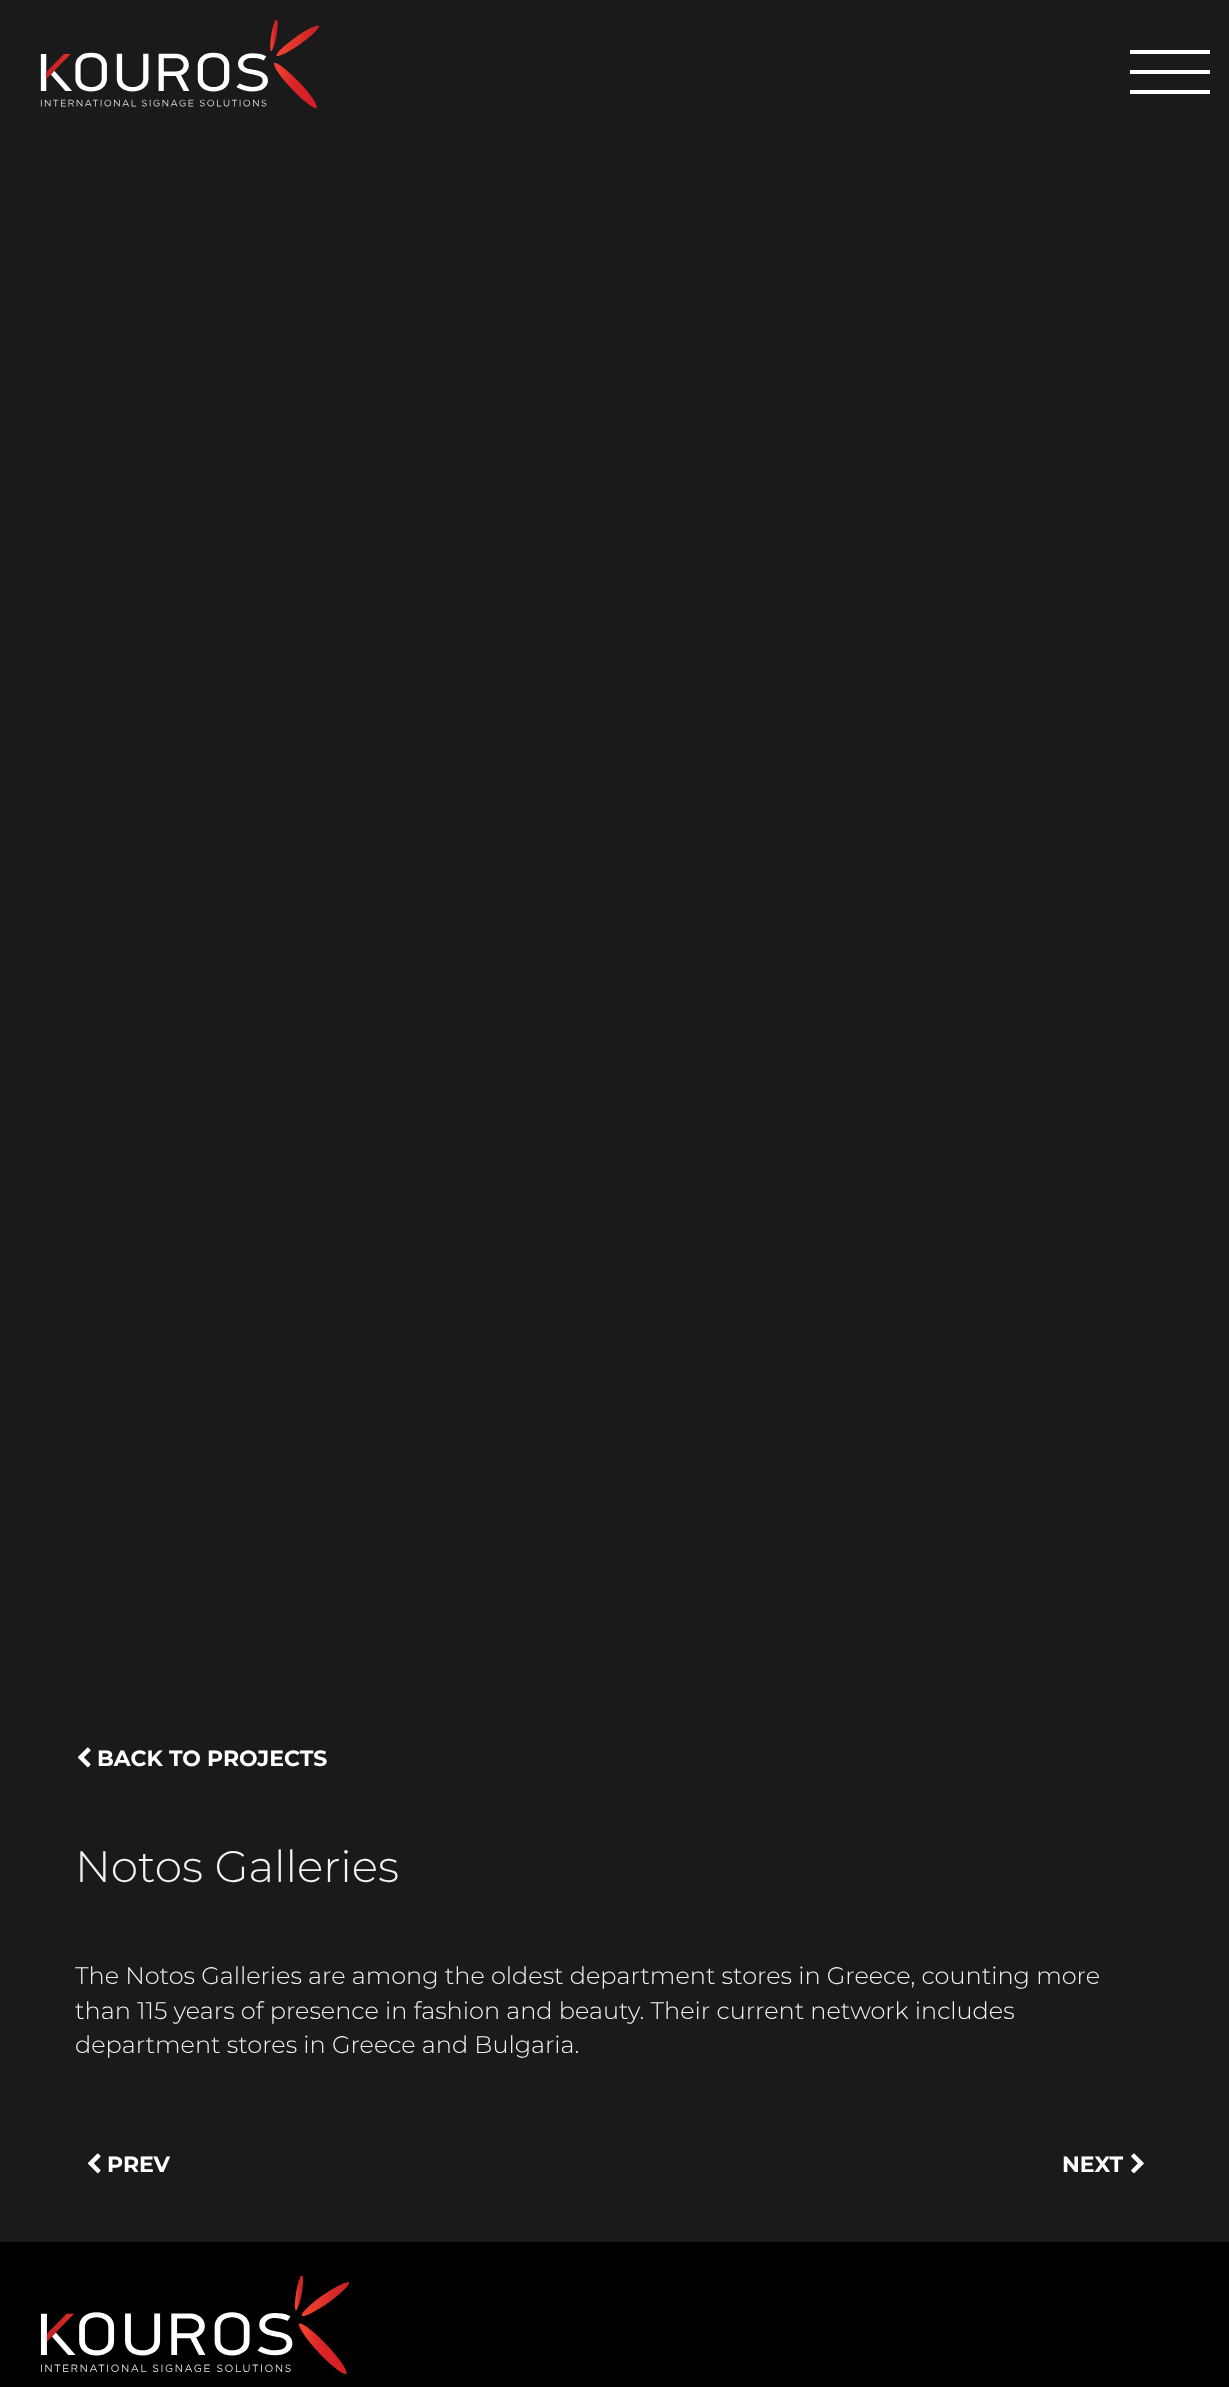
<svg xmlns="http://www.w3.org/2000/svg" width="1229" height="2387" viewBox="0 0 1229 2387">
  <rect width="100%" height="100%" fill="#000000"/>
  <rect x="0" y="0" width="1229" height="2242" fill="#1a1a1a"/>
  <image x="40" y="20" width="280" height="89" href="img1.png"/>
  <rect x="1130" y="50" width="80" height="4" fill="#ffffff"/>
  <rect x="1130" y="70" width="80" height="4" fill="#ffffff"/>
  <rect x="1130" y="90" width="80" height="4" fill="#ffffff"/>
  <image x="77" y="1747" width="14" height="21" href="img2.png"/>
  <text x="97" y="1766" font-family="Montserrat" font-size="22" font-weight="bold" fill="#ffffff">BACK TO PROJECTS</text>
  <text x="75" y="1882" font-family="Montserrat" font-size="44" font-weight="300" fill="#f2f2f2">Notos Galleries</text>
  <text x="75" y="1984" font-family="Montserrat" font-size="24" font-weight="300" fill="#f2f2f2">The Notos Galleries are among the oldest department stores in Greece, counting more</text>
  <text x="75" y="2019" font-family="Montserrat" font-size="24" font-weight="300" fill="#f2f2f2">than 115 years of presence in fashion and beauty. Their current network includes</text>
  <text x="75" y="2053" font-family="Montserrat" font-size="24" font-weight="300" fill="#f2f2f2">department stores in Greece and Bulgaria.</text>
  <image x="87" y="2153" width="14" height="21" href="img2.png"/>
  <text x="107" y="2172" font-family="Montserrat" font-size="22" font-weight="bold" fill="#ffffff">PREV</text>
  <text x="1062" y="2172" font-family="Montserrat" font-size="22" font-weight="bold" fill="#ffffff">NEXT</text>
  <image x="1131" y="2153" width="13" height="21" href="img3.png"/>
  <image x="40" y="2276" width="309" height="98" href="img4.png"/>
</svg>
